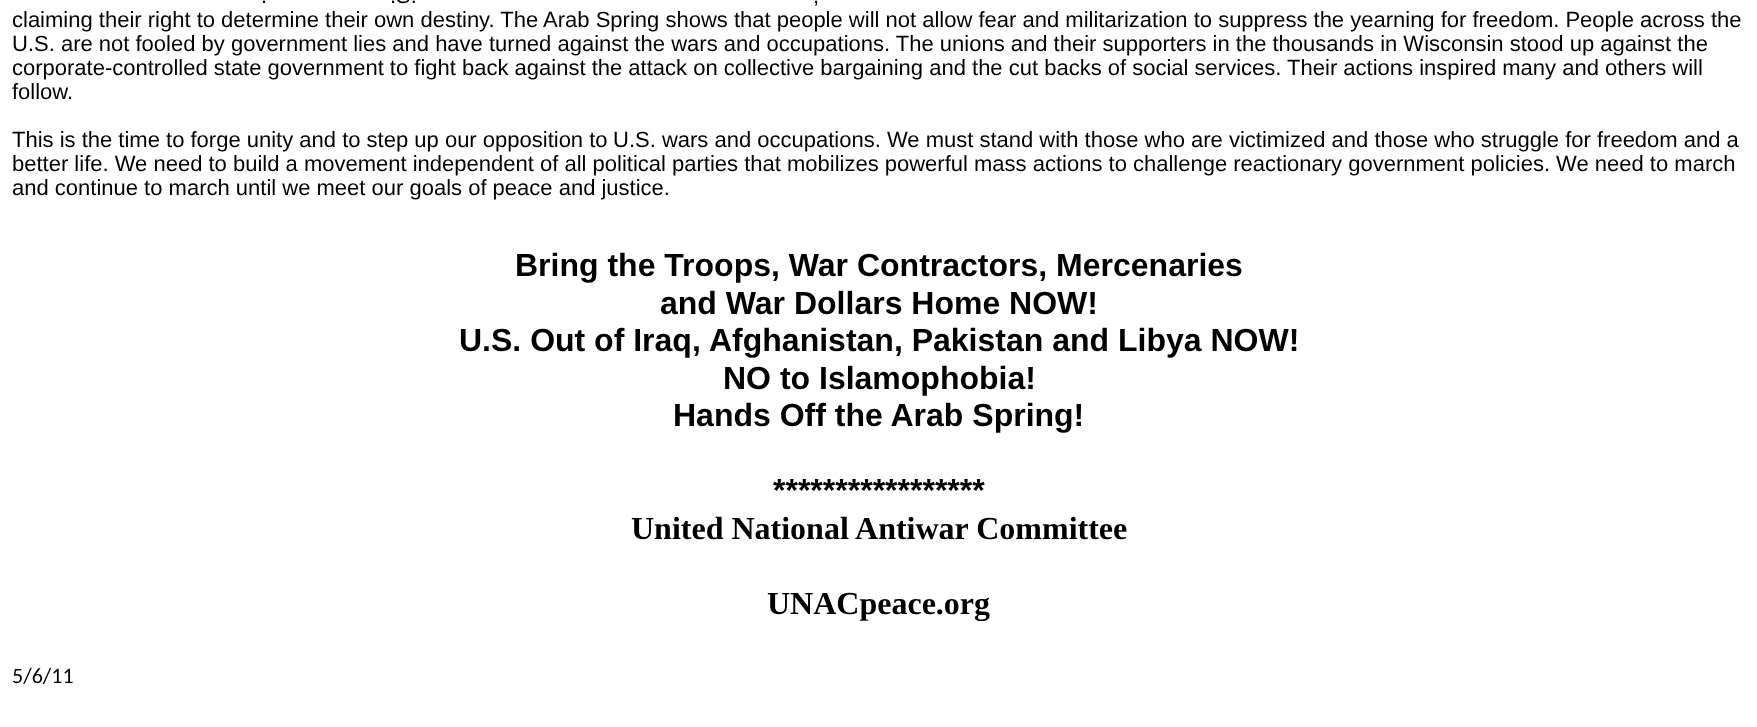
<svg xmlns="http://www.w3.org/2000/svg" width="1757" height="727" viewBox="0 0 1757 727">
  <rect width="100%" height="100%" fill="#ffffff"/>
  <text x="261" y="3" font-family="Liberation Sans" font-size="22" fill="#000000">.</text>
  <text x="390" y="3" font-family="Liberation Sans" font-size="22" fill="#000000">.S.</text>
  <text x="813" y="3" font-family="Liberation Sans" font-size="22" fill="#000000">,</text>
  <text x="12" y="27" font-family="Liberation Sans" font-size="22" fill="#000000">claiming their right to determine their own destiny. The Arab Spring shows that people will not allow fear and militarization to suppress the yearning for freedom. People across the</text>
  <text x="12" y="51" font-family="Liberation Sans" font-size="22" fill="#000000">U.S. are not fooled by government lies and have turned against the wars and occupations. The unions and their supporters in the thousands in Wisconsin stood up against the</text>
  <text x="12" y="75" font-family="Liberation Sans" font-size="22" fill="#000000">corporate-controlled state government to fight back against the attack on collective bargaining and the cut backs of social services. Their actions inspired many and others will</text>
  <text x="12" y="99" font-family="Liberation Sans" font-size="22" fill="#000000">follow.</text>
  <text x="12" y="147" font-family="Liberation Sans" font-size="22" fill="#000000">This is the time to forge unity and to step up our opposition to</text>
  <text x="613" y="147" font-family="Liberation Sans" font-size="22" fill="#000000">U.S. wars and occupations. We must stand with those who are victimized and those who struggle for freedom and a</text>
  <text x="12" y="171" font-family="Liberation Sans" font-size="22" fill="#000000">better life. We need to build a movement independent of all political parties that mobilizes powerful mass actions to challenge reactionary government policies. We need to march</text>
  <text x="12" y="195" font-family="Liberation Sans" font-size="22" fill="#000000">and continue to march until we meet our goals of peace and justice.</text>
  <text x="515" y="276" font-family="Liberation Sans" font-size="32" font-weight="bold" fill="#000000">Bring the Troops, War Contractors, Mercenaries</text>
  <text x="660" y="314" font-family="Liberation Sans" font-size="32" font-weight="bold" fill="#000000">and War Dollars Home NOW!</text>
  <text x="459" y="351" font-family="Liberation Sans" font-size="32" font-weight="bold" fill="#000000">U.S. Out of Iraq,</text>
  <text x="709" y="351" font-family="Liberation Sans" font-size="32" font-weight="bold" fill="#000000">Afghanistan, Pakistan and Libya NOW!</text>
  <text x="723" y="389" font-family="Liberation Sans" font-size="32" font-weight="bold" fill="#000000">NO to Islamophobia!</text>
  <text x="673" y="426" font-family="Liberation Sans" font-size="32" font-weight="bold" fill="#000000">Hands Off the Arab Spring!</text>
  <text x="773" y="501" font-family="Liberation Sans" font-size="32" font-weight="bold" fill="#000000">*****************</text>
  <text x="631" y="539" font-family="Liberation Serif" font-size="32" font-weight="bold" fill="#000000">United National Antiwar Committee</text>
  <text x="767" y="614" font-family="Liberation Serif" font-size="32" font-weight="bold" fill="#000000">UNACpeace.org</text>
  <text x="12" y="683" font-family="Carlito" font-size="22" fill="#000000">5/6/11</text>
</svg>
